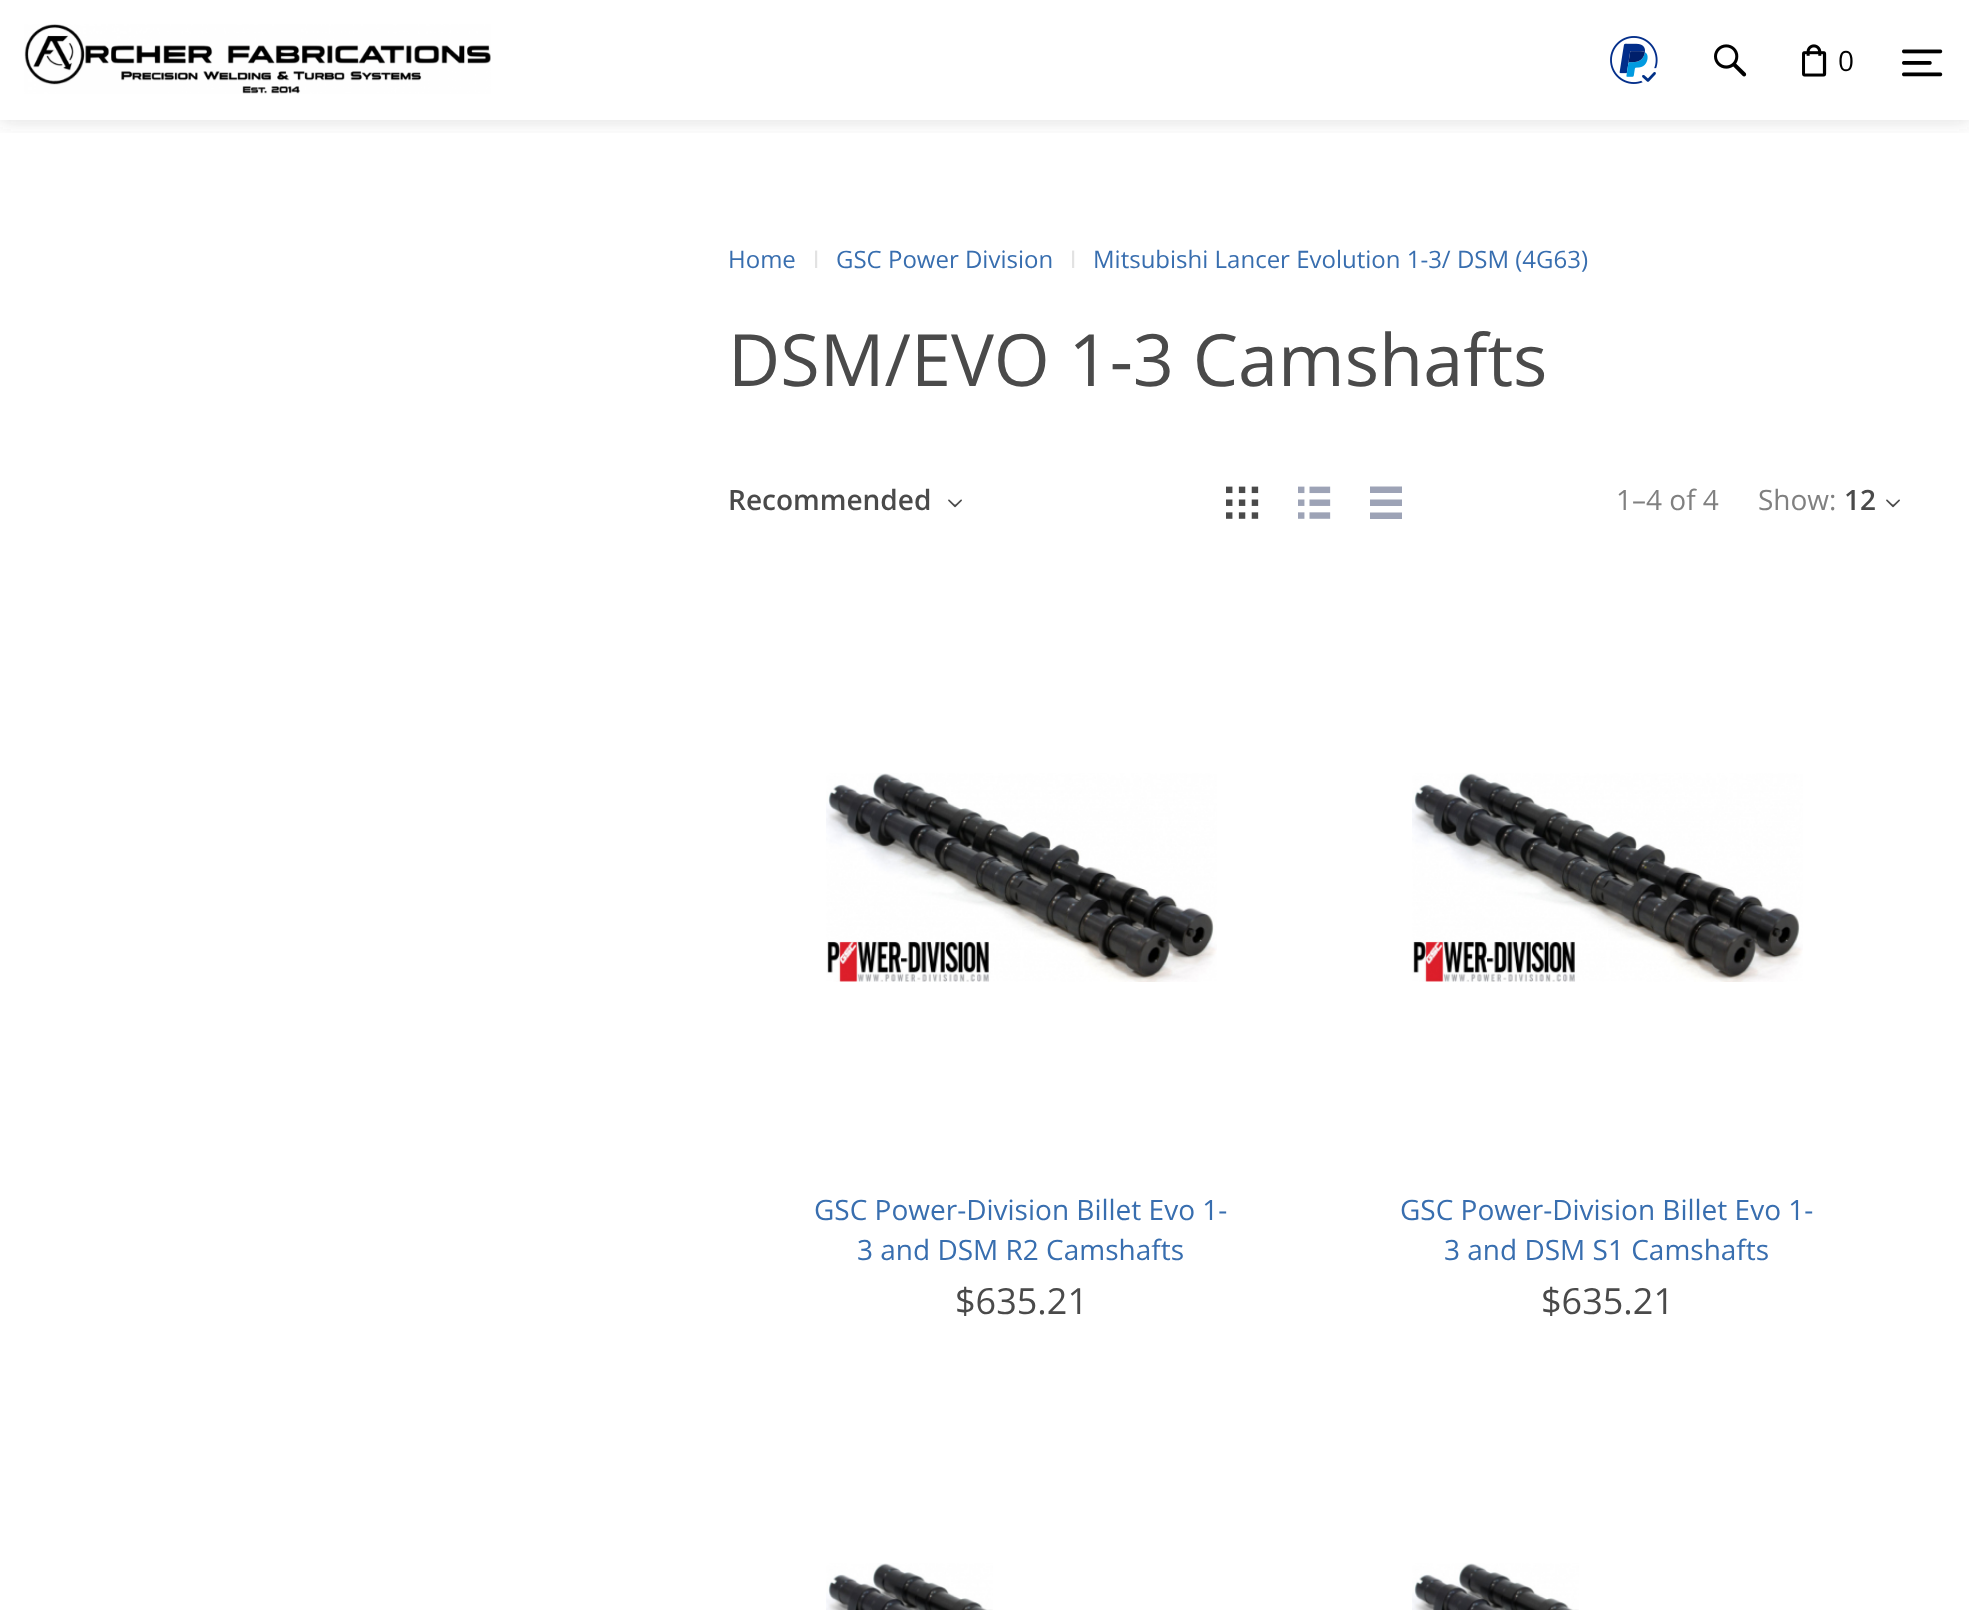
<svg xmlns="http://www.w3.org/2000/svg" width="1969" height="1610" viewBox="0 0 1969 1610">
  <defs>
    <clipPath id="clip1"><rect x="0" y="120" width="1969" height="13"/></clipPath>
    <filter id="blur1" x="-50%" y="-200%" width="200%" height="500%"><feGaussianBlur stdDeviation="10"/></filter>
  </defs>
  <rect width="100%" height="100%" fill="#ffffff"/>
  <g clip-path="url(#clip1)">
    <rect x="0" y="0" width="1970" height="120" fill="#4a494a" fill-opacity="0.2" filter="url(#blur1)"/>
  </g>
  <image x="24" y="24" width="467" height="70" href="img1.png"/>
  <image x="1610" y="36" width="48" height="48" href="img2.png"/>
  <image x="1714" y="44" width="33" height="33" href="img3.png"/>
  <image x="1802" y="44" width="25" height="33" href="img4.png"/>
  <text x="1838" y="71" font-family="Open Sans" font-size="28" fill="#000000">0</text>
  <image x="1902" y="49" width="41" height="28" href="img5.png"/>
  <text x="728" y="268" font-family="Open Sans" font-size="24" fill="#386eaf">Home</text>
  <text x="813" y="268" font-family="Liberation Sans" font-size="24" fill="#e2e2e2">ǀ</text>
  <text x="836" y="268" font-family="Open Sans" font-size="24" fill="#386eaf">GSC Power Division</text>
  <text x="1070" y="268" font-family="Liberation Sans" font-size="24" fill="#e2e2e2">ǀ</text>
  <text x="1093" y="268" font-family="Open Sans" font-size="24" fill="#386eaf">Mitsubishi Lancer Evolution 1-3/ DSM (4G63)</text>
  <text x="728" y="386" font-family="Open Sans" font-size="72" fill="#4a4a4a">DSM/EVO 1-3 Camshafts</text>
  <text x="728" y="510" font-family="Open Sans" font-size="28" font-weight="600" fill="#4a4a4a">Recommended</text>
  <image x="948" y="499" width="14" height="9" href="img6.png"/>
  <image x="1226" y="486" width="33" height="33" href="img7.png"/>
  <image x="1298" y="486" width="33" height="33" href="img8.png"/>
  <path d="M1370 486.5H1402V493H1370ZM1370 499.5H1402V506H1370ZM1370 512.5H1402V519H1370Z" fill="#9da3b6"/>
  <text x="1616" y="510" font-family="Open Sans" font-size="28" fill="#808080">1–4 of 4</text>
  <text x="1758" y="510" font-family="Open Sans" font-size="28" fill="#808080">Show:</text>
  <text x="1844" y="510" font-family="Open Sans" font-size="28" font-weight="600" fill="#4a4a4a">12</text>
  <image x="1886" y="499" width="14" height="9" href="img6.png"/>
  <image x="826" y="773" width="391" height="209" href="img9.png"/>
  <text x="814" y="1220" font-family="Open Sans" font-size="28" fill="#386eaf">GSC Power-Division Billet Evo 1-</text>
  <text x="857" y="1260" font-family="Open Sans" font-size="28" fill="#386eaf">3 and DSM R2 Camshafts</text>
  <text x="955" y="1314" font-family="Open Sans" font-size="36" fill="#4a4a4a">$635.21</text>
  <image x="1412" y="773" width="391" height="209" href="img10.png"/>
  <text x="1400" y="1220" font-family="Open Sans" font-size="28" fill="#386eaf">GSC Power-Division Billet Evo 1-</text>
  <text x="1444" y="1260" font-family="Open Sans" font-size="28" fill="#386eaf">3 and DSM S1 Camshafts</text>
  <text x="1541" y="1314" font-family="Open Sans" font-size="36" fill="#4a4a4a">$635.21</text>
  <image x="826" y="1563" width="167" height="47" href="img11.png"/>
  <image x="1412" y="1563" width="167" height="47" href="img12.png"/>
</svg>
